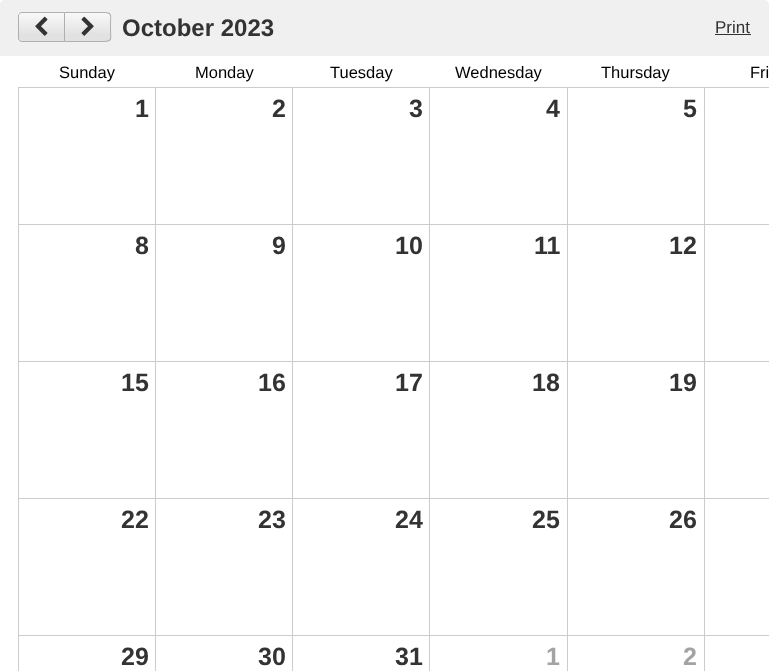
<svg xmlns="http://www.w3.org/2000/svg" width="769" height="671" viewBox="0 0 769 671">
  <defs>
    <linearGradient id="g1" gradientUnits="userSpaceOnUse" x1="19" y1="13" x2="19" y2="35"><stop offset="0" stop-color="#ffffff" stop-opacity="0.8"/><stop offset="1" stop-color="#ffffff" stop-opacity="0"/></linearGradient>
    <linearGradient id="g2" gradientUnits="userSpaceOnUse" x1="65" y1="13" x2="65" y2="35"><stop offset="0" stop-color="#ffffff" stop-opacity="0.8"/><stop offset="1" stop-color="#ffffff" stop-opacity="0"/></linearGradient>
    <clipPath id="clip1"><path d="M65 12H107C109 12 111 14 111 16V38C111 40 109 42 107 42H65Z"/></clipPath>
    <linearGradient id="g3" gradientUnits="userSpaceOnUse" x1="65" y1="41" x2="65" y2="63"><stop offset="0" stop-color="#ffffff" stop-opacity="0.8"/><stop offset="1" stop-color="#ffffff" stop-opacity="0"/></linearGradient>
  </defs>
  <rect width="100%" height="100%" fill="#ffffff"/>
  <path d="M5 0H764C767 0 769 2 769 5V56H0V5C0 2 2 0 5 0Z" fill="#f0f0f0"/>
  <path d="M22 12H65V42H22C20 42 18 40 18 38V16C18 14 20 12 22 12Z" fill="#e2e2e2"/>
  <rect x="18" y="13" width="46" height="20" fill="url(#g1)"/>
  <path d="M22 12.5H64.5V41.5H22C20 41.5 18.5 40 18.5 38V16C18.5 14 20 12.5 22 12.5Z" fill="none" stroke="#aeafb3"/>
  <image x="35" y="16" width="13" height="20" href="img1.png"/>
  <path d="M65 12H107C109 12 111 14 111 16V38C111 40 109 42 107 42H65Z" fill="#e2e2e2"/>
  <rect x="65" y="13" width="46" height="20" fill="url(#g2)"/>
  <g clip-path="url(#clip1)">
    <rect x="102" y="41" width="9" height="1" fill="url(#g3)"/>
  </g>
  <path d="M65 12H100C114 12 111 13 111 27C111 41 114 42 100 42H65ZM65 13H100C113 13 110 14 110 27C110 40 113 41 100 41H65Z" fill="#aeafb3" fill-rule="evenodd"/>
  <image x="81" y="16" width="13" height="20" href="img2.png"/>
  <text x="122" y="36" font-family="Liberation Sans" font-size="24" font-weight="bold" fill="#333333">October 2023</text>
  <text x="715" y="33" font-family="Liberation Sans" font-size="17" fill="#333333">Print</text>
  <rect x="715" y="34" width="36" height="1" fill="#333333"/>
  <text x="59" y="78" font-family="Liberation Sans" font-size="16.5" fill="#000000">Sunday</text>
  <text x="195" y="78" font-family="Liberation Sans" font-size="16.5" fill="#000000">Monday</text>
  <text x="330" y="78" font-family="Liberation Sans" font-size="16.5" fill="#000000">Tuesday</text>
  <text x="455" y="78" font-family="Liberation Sans" font-size="16.5" fill="#000000">Wednesday</text>
  <text x="601" y="78" font-family="Liberation Sans" font-size="16.5" fill="#000000">Thursday</text>
  <text x="750" y="78" font-family="Liberation Sans" font-size="16.5" fill="#000000">Fri</text>
  <rect x="18" y="87" width="751" height="1" fill="#cccccc"/>
  <rect x="704" y="635" width="1" height="36" fill="#cccccc"/>
  <rect x="704" y="635" width="65" height="1" fill="#cccccc"/>
  <rect x="704" y="498" width="1" height="138" fill="#cccccc"/>
  <rect x="704" y="498" width="65" height="1" fill="#cccccc"/>
  <rect x="704" y="361" width="1" height="138" fill="#cccccc"/>
  <rect x="704" y="361" width="65" height="1" fill="#cccccc"/>
  <rect x="704" y="224" width="1" height="138" fill="#cccccc"/>
  <rect x="704" y="224" width="65" height="1" fill="#cccccc"/>
  <rect x="704" y="87" width="1" height="138" fill="#cccccc"/>
  <rect x="567" y="635" width="1" height="36" fill="#cccccc"/>
  <rect x="567" y="635" width="138" height="1" fill="#cccccc"/>
  <rect x="567" y="498" width="1" height="138" fill="#cccccc"/>
  <rect x="567" y="498" width="138" height="1" fill="#cccccc"/>
  <rect x="567" y="361" width="1" height="138" fill="#cccccc"/>
  <rect x="567" y="361" width="138" height="1" fill="#cccccc"/>
  <rect x="567" y="224" width="1" height="138" fill="#cccccc"/>
  <rect x="567" y="224" width="138" height="1" fill="#cccccc"/>
  <rect x="567" y="87" width="1" height="138" fill="#cccccc"/>
  <rect x="429" y="635" width="1" height="36" fill="#cccccc"/>
  <rect x="429" y="635" width="139" height="1" fill="#cccccc"/>
  <rect x="429" y="498" width="1" height="138" fill="#cccccc"/>
  <rect x="429" y="498" width="139" height="1" fill="#cccccc"/>
  <rect x="429" y="361" width="1" height="138" fill="#cccccc"/>
  <rect x="429" y="361" width="139" height="1" fill="#cccccc"/>
  <rect x="429" y="224" width="1" height="138" fill="#cccccc"/>
  <rect x="429" y="224" width="139" height="1" fill="#cccccc"/>
  <rect x="429" y="87" width="1" height="138" fill="#cccccc"/>
  <rect x="292" y="635" width="1" height="36" fill="#cccccc"/>
  <rect x="292" y="635" width="138" height="1" fill="#cccccc"/>
  <rect x="292" y="498" width="1" height="138" fill="#cccccc"/>
  <rect x="292" y="498" width="138" height="1" fill="#cccccc"/>
  <rect x="292" y="361" width="1" height="138" fill="#cccccc"/>
  <rect x="292" y="361" width="138" height="1" fill="#cccccc"/>
  <rect x="292" y="224" width="1" height="138" fill="#cccccc"/>
  <rect x="292" y="224" width="138" height="1" fill="#cccccc"/>
  <rect x="292" y="87" width="1" height="138" fill="#cccccc"/>
  <rect x="155" y="635" width="1" height="36" fill="#cccccc"/>
  <rect x="155" y="635" width="138" height="1" fill="#cccccc"/>
  <rect x="155" y="498" width="1" height="138" fill="#cccccc"/>
  <rect x="155" y="498" width="138" height="1" fill="#cccccc"/>
  <rect x="155" y="361" width="1" height="138" fill="#cccccc"/>
  <rect x="155" y="361" width="138" height="1" fill="#cccccc"/>
  <rect x="155" y="224" width="1" height="138" fill="#cccccc"/>
  <rect x="155" y="224" width="138" height="1" fill="#cccccc"/>
  <rect x="155" y="87" width="1" height="138" fill="#cccccc"/>
  <rect x="18" y="635" width="1" height="36" fill="#cccccc"/>
  <rect x="18" y="635" width="138" height="1" fill="#cccccc"/>
  <rect x="18" y="498" width="1" height="138" fill="#cccccc"/>
  <rect x="18" y="498" width="138" height="1" fill="#cccccc"/>
  <rect x="18" y="361" width="1" height="138" fill="#cccccc"/>
  <rect x="18" y="361" width="138" height="1" fill="#cccccc"/>
  <rect x="18" y="224" width="1" height="138" fill="#cccccc"/>
  <rect x="18" y="224" width="138" height="1" fill="#cccccc"/>
  <rect x="18" y="87" width="1" height="138" fill="#cccccc"/>
  <text x="135" y="117" font-family="Liberation Sans" font-size="25" font-weight="bold" fill="#333333">1</text>
  <text x="272" y="117" font-family="Liberation Sans" font-size="25" font-weight="bold" fill="#333333">2</text>
  <text x="409" y="117" font-family="Liberation Sans" font-size="25" font-weight="bold" fill="#333333">3</text>
  <text x="546" y="117" font-family="Liberation Sans" font-size="25" font-weight="bold" fill="#333333">4</text>
  <text x="683" y="117" font-family="Liberation Sans" font-size="25" font-weight="bold" fill="#333333">5</text>
  <text x="135" y="254" font-family="Liberation Sans" font-size="25" font-weight="bold" fill="#333333">8</text>
  <text x="272" y="254" font-family="Liberation Sans" font-size="25" font-weight="bold" fill="#333333">9</text>
  <text x="395" y="254" font-family="Liberation Sans" font-size="25" font-weight="bold" fill="#333333">10</text>
  <text x="534" y="254" font-family="Liberation Sans" font-size="25" font-weight="bold" fill="#333333">11</text>
  <text x="669" y="254" font-family="Liberation Sans" font-size="25" font-weight="bold" fill="#333333">12</text>
  <text x="121" y="391" font-family="Liberation Sans" font-size="25" font-weight="bold" fill="#333333">15</text>
  <text x="258" y="391" font-family="Liberation Sans" font-size="25" font-weight="bold" fill="#333333">16</text>
  <text x="395" y="391" font-family="Liberation Sans" font-size="25" font-weight="bold" fill="#333333">17</text>
  <text x="532" y="391" font-family="Liberation Sans" font-size="25" font-weight="bold" fill="#333333">18</text>
  <text x="669" y="391" font-family="Liberation Sans" font-size="25" font-weight="bold" fill="#333333">19</text>
  <text x="121" y="528" font-family="Liberation Sans" font-size="25" font-weight="bold" fill="#333333">22</text>
  <text x="258" y="528" font-family="Liberation Sans" font-size="25" font-weight="bold" fill="#333333">23</text>
  <text x="395" y="528" font-family="Liberation Sans" font-size="25" font-weight="bold" fill="#333333">24</text>
  <text x="532" y="528" font-family="Liberation Sans" font-size="25" font-weight="bold" fill="#333333">25</text>
  <text x="669" y="528" font-family="Liberation Sans" font-size="25" font-weight="bold" fill="#333333">26</text>
  <text x="121" y="665" font-family="Liberation Sans" font-size="25" font-weight="bold" fill="#333333">29</text>
  <text x="258" y="665" font-family="Liberation Sans" font-size="25" font-weight="bold" fill="#333333">30</text>
  <text x="395" y="665" font-family="Liberation Sans" font-size="25" font-weight="bold" fill="#333333">31</text>
  <text x="546" y="665" font-family="Liberation Sans" font-size="25" font-weight="bold" fill="#a3a3a3">1</text>
  <text x="683" y="665" font-family="Liberation Sans" font-size="25" font-weight="bold" fill="#a3a3a3">2</text>
</svg>
